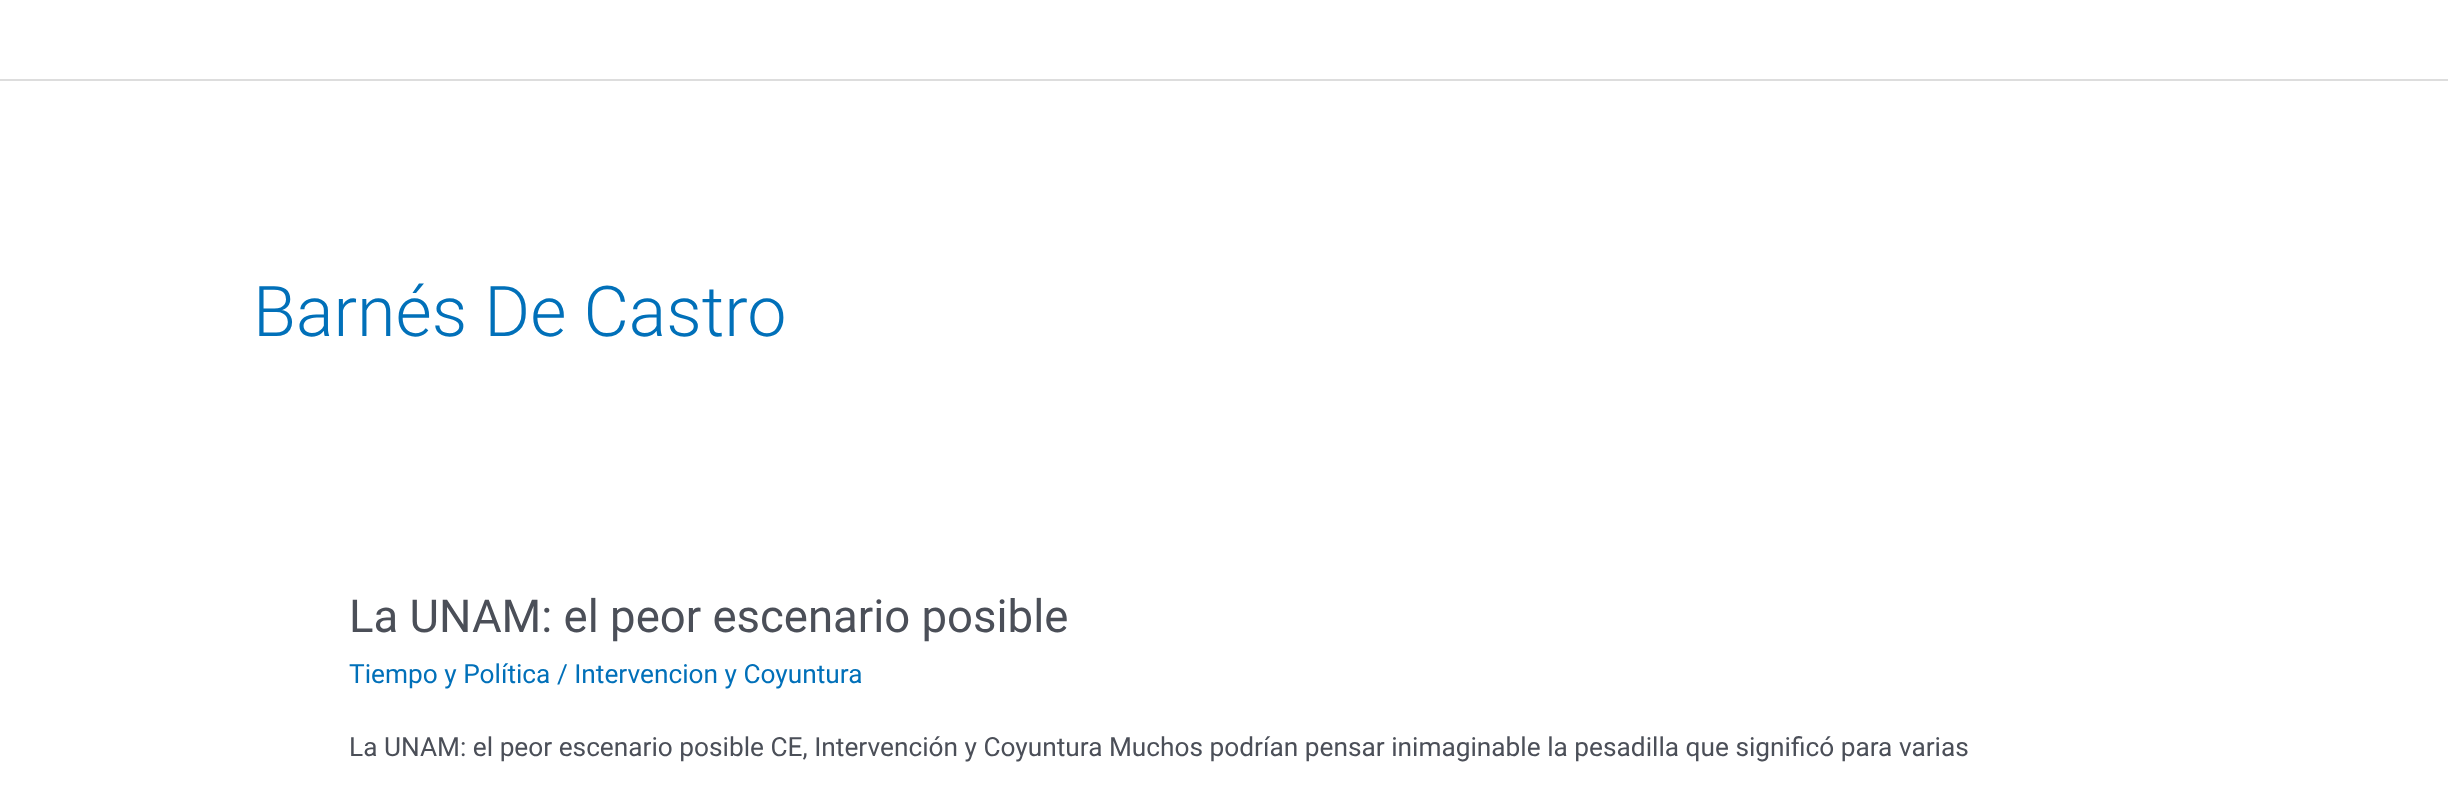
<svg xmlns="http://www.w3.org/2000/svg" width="2448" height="790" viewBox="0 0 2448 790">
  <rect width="100%" height="100%" fill="#ffffff"/>
  <rect x="0" y="79" width="2448" height="2" fill="#dddddd"/>
  <text x="253" y="336" font-family="Roboto" font-size="70" font-weight="300" fill="#0170b9">Barnés De Castro</text>
  <text x="349" y="632" font-family="Roboto" font-size="45.5" fill="#4b4f58">La UNAM: el peor escenario posible</text>
  <text x="349" y="683" font-family="Roboto" font-size="26.25" fill="#0170b9">Tiempo y Política / Intervencion y Coyuntura</text>
  <text x="349" y="756" font-family="Roboto" font-size="26.25" fill="#4b4f58">La UNAM: el peor escenario posible CE, Intervención y Coyuntura Muchos podrían pensar inimaginable la pesadilla que significó para varias</text>
</svg>
